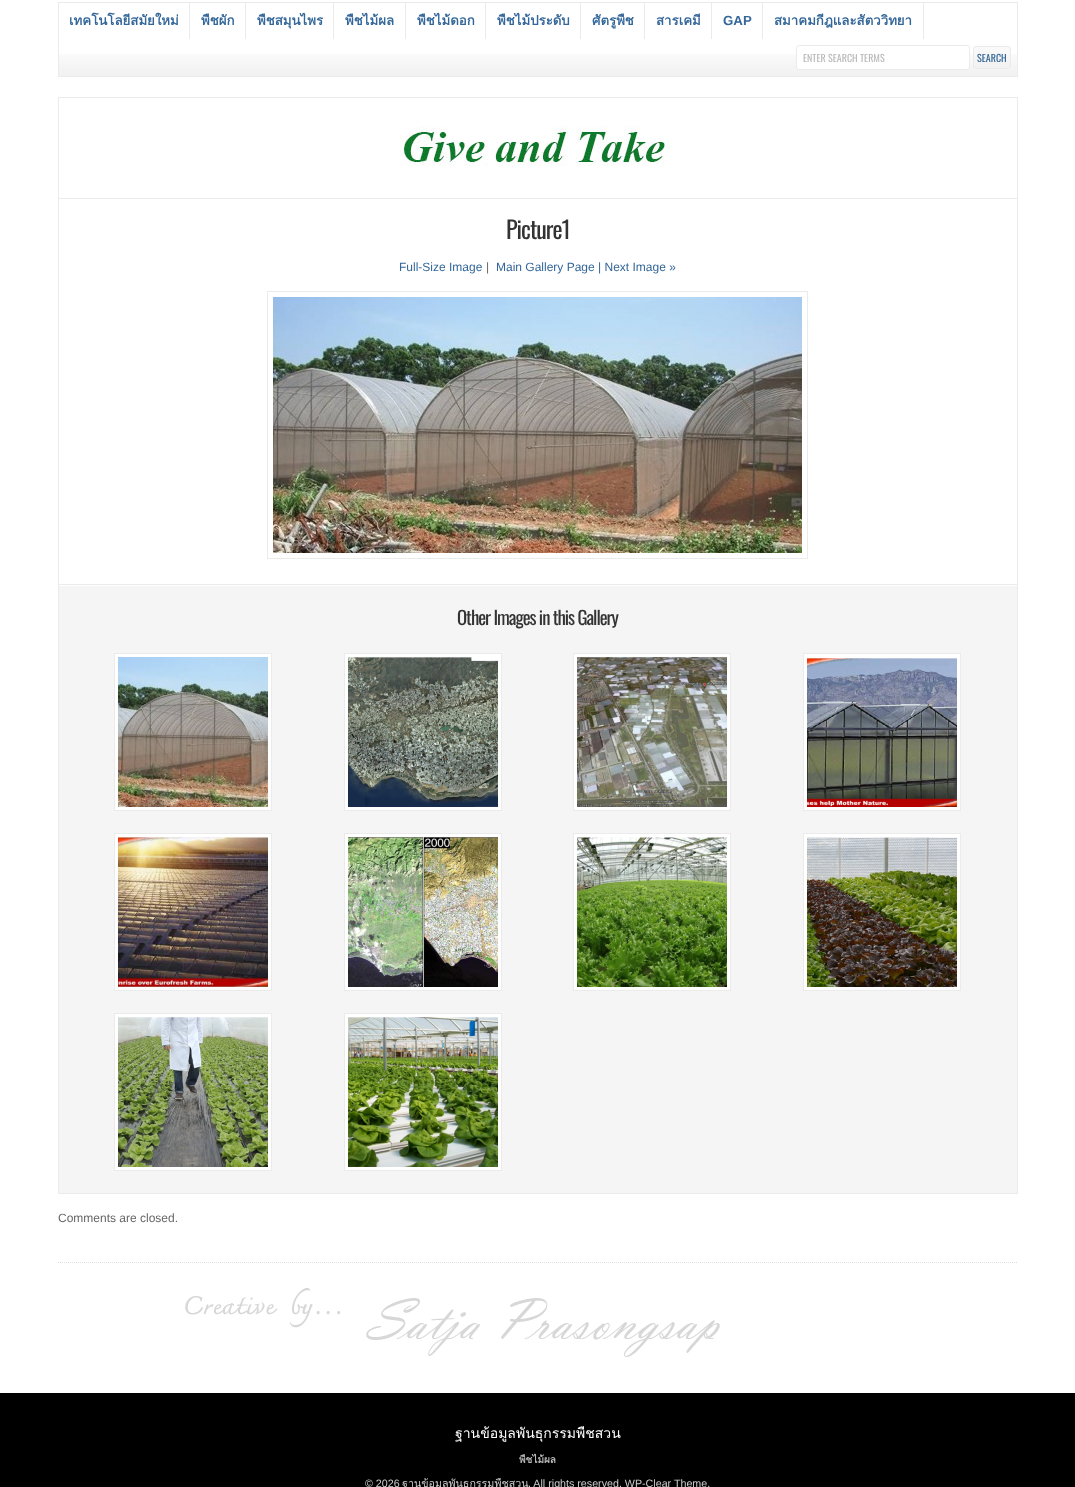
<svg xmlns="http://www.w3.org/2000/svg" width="1075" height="1487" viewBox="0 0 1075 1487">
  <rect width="100%" height="100%" fill="#ffffff"/>
  <image x="59" y="54" width="958" height="22" href="img1.png"/>
  <rect x="58.5" y="2.5" width="959" height="74" fill="none" stroke="#ebebeb"/>
  <rect x="189" y="3" width="1" height="36" fill="#ebebeb"/>
  <text x="69" y="25" font-family="Loma" font-size="13.25" font-weight="bold" fill="#336699">เทคโนโลยีสมัยใหม่</text>
  <rect x="245" y="3" width="1" height="36" fill="#ebebeb"/>
  <text x="201" y="25" font-family="Loma" font-size="13.25" font-weight="bold" fill="#336699">พืชผัก</text>
  <rect x="333" y="3" width="1" height="36" fill="#ebebeb"/>
  <text x="257" y="25" font-family="Loma" font-size="13.25" font-weight="bold" fill="#336699">พืชสมุนไพร</text>
  <rect x="405" y="3" width="1" height="36" fill="#ebebeb"/>
  <text x="345" y="25" font-family="Loma" font-size="13.25" font-weight="bold" fill="#336699">พืชไม้ผล</text>
  <rect x="485" y="3" width="1" height="36" fill="#ebebeb"/>
  <text x="417" y="25" font-family="Loma" font-size="13.25" font-weight="bold" fill="#336699">พืชไม้ดอก</text>
  <rect x="580" y="3" width="1" height="36" fill="#ebebeb"/>
  <text x="497" y="25" font-family="Loma" font-size="13.25" font-weight="bold" fill="#336699">พืชไม้ประดับ</text>
  <rect x="644" y="3" width="1" height="36" fill="#ebebeb"/>
  <text x="592" y="25" font-family="Loma" font-size="13.25" font-weight="bold" fill="#336699">ศัตรูพืช</text>
  <rect x="711" y="3" width="1" height="36" fill="#ebebeb"/>
  <text x="656" y="25" font-family="Loma" font-size="13.25" font-weight="bold" fill="#336699">สารเคมี</text>
  <rect x="762" y="3" width="1" height="36" fill="#ebebeb"/>
  <text x="723" y="25" font-family="Liberation Sans" font-size="13.25" font-weight="bold" fill="#336699">GAP</text>
  <rect x="923" y="3" width="1" height="36" fill="#ebebeb"/>
  <text x="774" y="25" font-family="Loma" font-size="13.25" font-weight="bold" fill="#336699">สมาคมกีฎและสัตววิทยา</text>
  <rect x="796.5" y="45.5" width="173" height="24" rx="2.5" fill="#ffffff" stroke="#ebebeb"/>
  <text x="803" y="62" font-family="Oswald" font-size="10" fill="#bbbbbb">ENTER SEARCH TERMS</text>
  <rect x="973" y="46" width="38" height="23" rx="3" fill="#ffffff"/>
  <image x="973" y="46" width="38" height="22" href="img2.png"/>
  <rect x="973.5" y="46.5" width="37" height="22" rx="2.5" fill="none" stroke="#ebebeb"/>
  <text x="977" y="62" font-family="Oswald" font-size="10" fill="#336699">SEARCH</text>
  <rect x="58" y="97" width="960" height="1" fill="#ebebeb"/>
  <rect x="1017" y="97" width="1" height="101" fill="#ebebeb"/>
  <rect x="58" y="97" width="1" height="101" fill="#ebebeb"/>
  <image x="400" y="126" width="270" height="40" href="img3.png"/>
  <rect x="58.5" y="198.5" width="959" height="386" fill="none" stroke="#ebebeb"/>
  <text x="506" y="239" font-family="Oswald" font-size="24" letter-spacing="-1" fill="#333333">Picture1</text>
  <text x="399" y="271" font-family="Liberation Sans" font-size="12" fill="#336699">Full-Size Image</text>
  <text x="486" y="271" font-family="Liberation Sans" font-size="12" fill="#666666">|</text>
  <text x="496" y="271" font-family="Liberation Sans" font-size="12" fill="#336699">Main Gallery Page | Next Image »</text>
  <rect x="267.5" y="291.5" width="540" height="267" fill="none" stroke="#ebebeb"/>
  <image x="273" y="297" width="529" height="256" href="img4.png"/>
  <rect x="59" y="586" width="958" height="607" fill="#f5f5f5"/>
  <rect x="1017" y="585" width="1" height="609" fill="#ebebeb"/>
  <rect x="58" y="1193" width="960" height="1" fill="#ebebeb"/>
  <rect x="58" y="585" width="1" height="609" fill="#ebebeb"/>
  <text x="457" y="625" font-family="Oswald" font-size="18.75" letter-spacing="-1" fill="#333333">Other Images in this Gallery</text>
  <rect x="114.5" y="653.5" width="157" height="157" fill="#ffffff" stroke="#ebebeb"/>
  <image x="118" y="657" width="150" height="150" href="img5.png"/>
  <rect x="344.5" y="653.5" width="157" height="157" fill="#ffffff" stroke="#ebebeb"/>
  <image x="348" y="657" width="150" height="150" href="img6.png"/>
  <rect x="573.5" y="653.5" width="157" height="157" fill="#ffffff" stroke="#ebebeb"/>
  <image x="577" y="657" width="150" height="150" href="img7.png"/>
  <rect x="803.5" y="653.5" width="157" height="157" fill="#ffffff" stroke="#ebebeb"/>
  <image x="807" y="658" width="150" height="149" href="img8.png"/>
  <rect x="114.5" y="833.5" width="157" height="157" fill="#ffffff" stroke="#ebebeb"/>
  <image x="118" y="837" width="150" height="150" href="img9.png"/>
  <rect x="344.5" y="833.5" width="157" height="157" fill="#ffffff" stroke="#ebebeb"/>
  <image x="348" y="837" width="150" height="150" href="img10.png"/>
  <rect x="573.5" y="833.5" width="157" height="157" fill="#ffffff" stroke="#ebebeb"/>
  <image x="577" y="837" width="150" height="150" href="img11.png"/>
  <rect x="803.5" y="833.5" width="157" height="157" fill="#ffffff" stroke="#ebebeb"/>
  <image x="807" y="837" width="150" height="150" href="img12.png"/>
  <rect x="114.5" y="1013.5" width="157" height="157" fill="#ffffff" stroke="#ebebeb"/>
  <image x="118" y="1017" width="150" height="150" href="img13.png"/>
  <rect x="344.5" y="1013.5" width="157" height="157" fill="#ffffff" stroke="#ebebeb"/>
  <image x="348" y="1017" width="150" height="150" href="img14.png"/>
  <text x="58" y="1222" font-family="Liberation Sans" font-size="12" fill="#666666">Comments are closed.</text>
  <path d="M58 1262.5H1018" fill="none" stroke="#dddddd" stroke-dasharray="1 1"/>
  <image x="185" y="1288" width="535" height="69" href="img15.png"/>
  <rect x="0" y="1393" width="1075" height="94" fill="#000000"/>
  <text x="455" y="1438" font-family="Loma" font-size="14" fill="#ffffff">ฐานข้อมูลพันธุกรรมพืชสวน</text>
  <text x="519" y="1463" font-family="Loma" font-size="10" font-weight="bold" fill="#bbbbbb">พืชไม้ผล</text>
  <text x="365" y="1487" font-family="Liberation Sans" font-size="10.7" fill="#cccccc">© 2026</text>
  <text x="402" y="1487" font-family="Loma" font-size="10.7" fill="#cccccc">ฐานข้อมูลพันธุกรรมพืชสวน</text>
  <text x="528" y="1487" font-family="Liberation Sans" font-size="10.7" fill="#cccccc">. All rights reserved. WP-Clear Theme.</text>
</svg>
